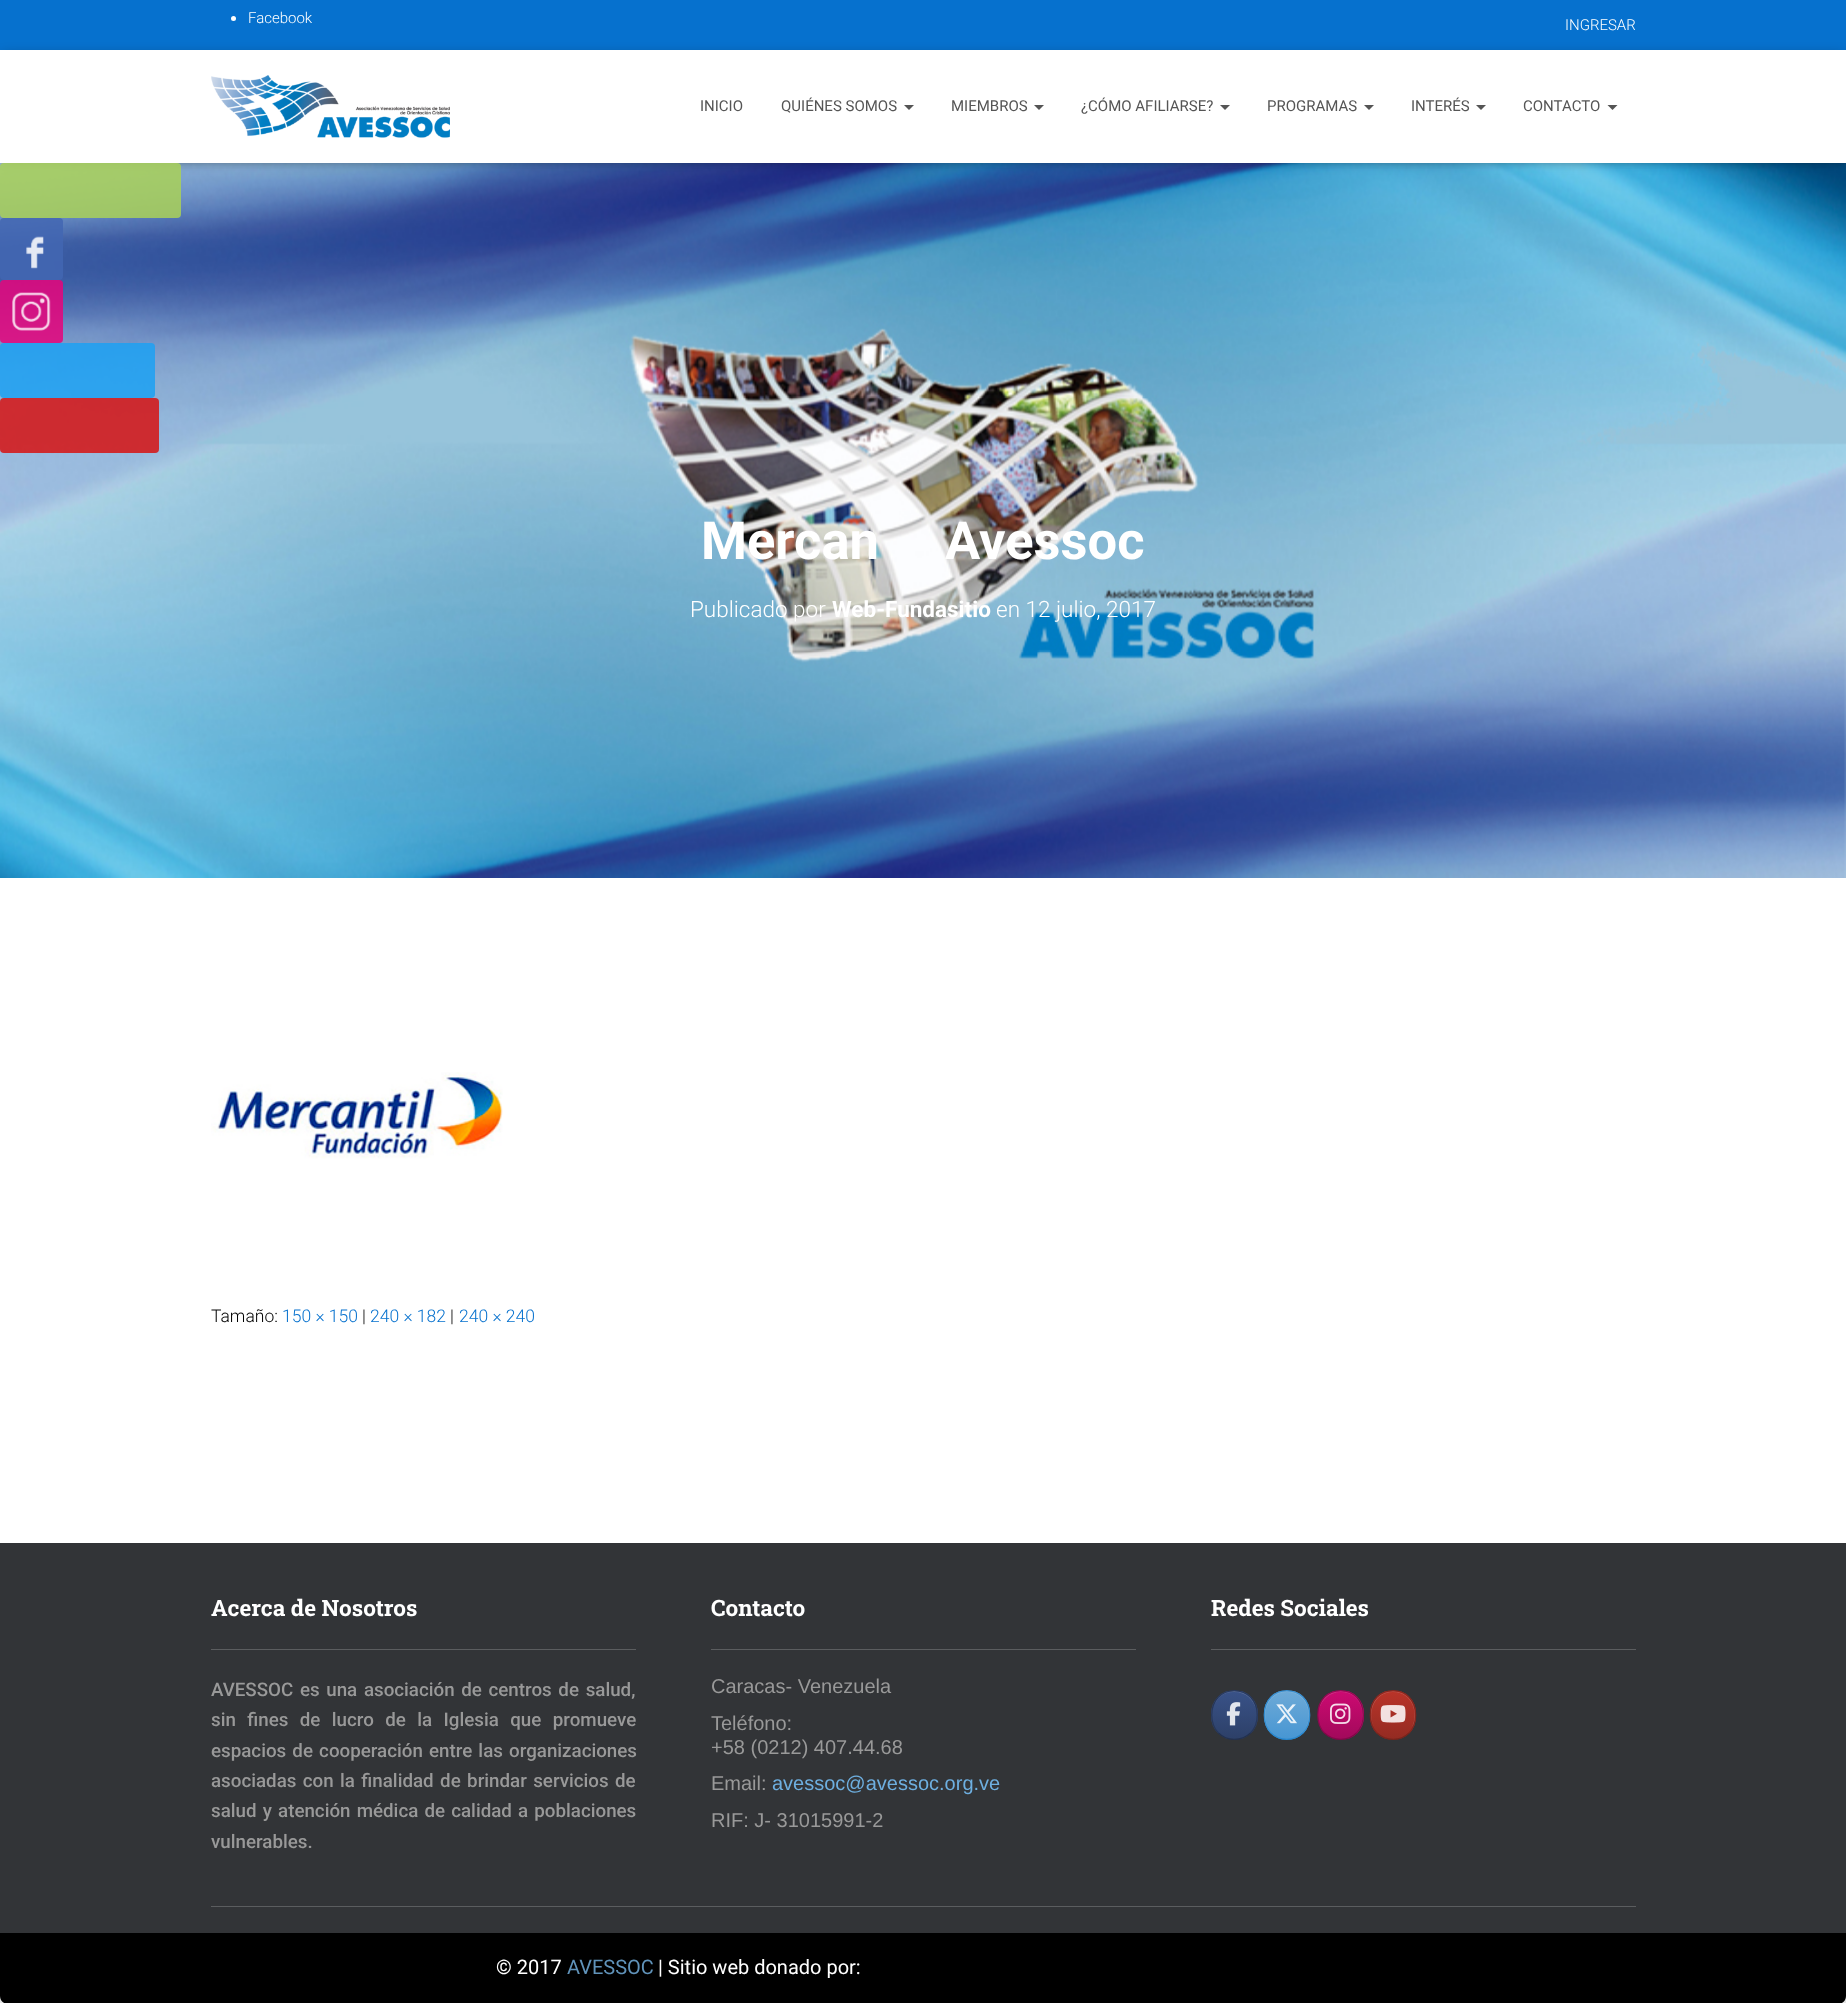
<svg xmlns="http://www.w3.org/2000/svg" width="1846" height="2003" viewBox="0 0 1846 2003">
  <defs>
    <filter id="blur1" x="-50%" y="-200%" width="200%" height="500%"><feGaussianBlur stdDeviation="3"/></filter>
    <filter id="blur2" x="-50%" y="-200%" width="200%" height="500%"><feGaussianBlur stdDeviation="6"/></filter>
    <clipPath id="clip1"><rect x="1211" y="1690" width="47" height="50" rx="23.5"/></clipPath>
    <linearGradient id="g1" gradientUnits="userSpaceOnUse" x1="1213" y1="1739" x2="1213" y2="1691"><stop offset="0" stop-color="#2d4068"/><stop offset="1" stop-color="#395288"/></linearGradient>
    <clipPath id="clip2"><rect x="1264" y="1690" width="46" height="50" rx="23"/></clipPath>
    <linearGradient id="g2" gradientUnits="userSpaceOnUse" x1="1265" y1="1739" x2="1265" y2="1691"><stop offset="0" stop-color="#4796d3"/><stop offset="1" stop-color="#6eaad7"/></linearGradient>
    <clipPath id="clip3"><rect x="1318" y="1690" width="46" height="50" rx="23"/></clipPath>
    <linearGradient id="g3" gradientUnits="userSpaceOnUse" x1="1319" y1="1739" x2="1319" y2="1691"><stop offset="0" stop-color="#a2095b"/><stop offset="1" stop-color="#cd0a72"/></linearGradient>
    <clipPath id="clip4"><rect x="1370" y="1690" width="46" height="50" rx="23"/></clipPath>
    <linearGradient id="g4" gradientUnits="userSpaceOnUse" x1="1371" y1="1739" x2="1371" y2="1691"><stop offset="0" stop-color="#942b22"/><stop offset="1" stop-color="#b93429"/></linearGradient>
  </defs>
  <rect width="100%" height="100%" fill="#e5e5e5"/>
  <rect x="0" y="0" width="1846" height="50" fill="#0671ce"/>
  <circle cx="233.5" cy="18.5" r="2.5" fill="#ffffff"/>
  <text x="248" y="23" font-family="Roboto" font-size="15" font-weight="300" fill="#ffffff">Facebook</text>
  <text x="1565" y="30" font-family="Roboto" font-size="15" font-weight="300" fill="#ffffff">INGRESAR</text>
  <image x="0" y="163" width="1846" height="715" href="img2.png"/>
  <rect x="3" y="58" width="1841" height="107" fill="#000000" fill-opacity="0.1" filter="url(#blur1)"/>
  <rect x="0" y="51" width="1846" height="113" fill="#000000" fill-opacity="0.12" filter="url(#blur2)"/>
  <rect x="8" y="59" width="1831" height="97" fill="#000000" fill-opacity="0.42" filter="url(#blur2)"/>
  <rect x="0" y="50" width="1846" height="113" fill="#ffffff"/>
  <image x="211" y="75" width="239" height="63" href="img1.png"/>
  <text x="700" y="111" font-family="Roboto" font-size="15" fill="#555555">INICIO</text>
  <text x="781" y="111" font-family="Roboto" font-size="15" fill="#555555">QUIÉNES SOMOS</text>
  <path d="M904 105H914L909 110Z" fill="#555555"/>
  <text x="951" y="111" font-family="Roboto" font-size="15" fill="#555555">MIEMBROS</text>
  <path d="M1034 105H1044L1039 110Z" fill="#555555"/>
  <text x="1081" y="111" font-family="Roboto" font-size="15" fill="#555555">¿CÓMO AFILIARSE?</text>
  <path d="M1220 105H1230L1225 110Z" fill="#555555"/>
  <text x="1267" y="111" font-family="Roboto" font-size="15" fill="#555555">PROGRAMAS</text>
  <path d="M1364 105H1374L1369 110Z" fill="#555555"/>
  <text x="1411" y="111" font-family="Roboto" font-size="15" fill="#555555">INTERÉS</text>
  <path d="M1476 105H1486L1481 110Z" fill="#555555"/>
  <text x="1523" y="111" font-family="Roboto" font-size="15" fill="#555555">CONTACTO</text>
  <path d="M1607.5 105H1617.5L1612.5 110Z" fill="#555555"/>
  <text x="701" y="559" font-family="Roboto" font-size="52.5" font-weight="bold" fill="#ffffff">Mercan</text>
  <text x="945" y="559" font-family="Roboto" font-size="52.5" font-weight="bold" fill="#ffffff">Avessoc</text>
  <text x="690" y="617" font-family="Roboto" font-size="22.5" font-weight="300" fill="#ffffff">Publicado por</text>
  <text x="832" y="617" font-family="Roboto" font-size="22.5" font-weight="bold" fill="#ffffff">Web-Fundasitio</text>
  <text x="996" y="617" font-family="Roboto" font-size="22.5" font-weight="300" fill="#ffffff">en 12 julio, 2017</text>
  <rect x="0" y="878" width="1846" height="665" fill="#ffffff"/>
  <image x="211" y="1072" width="292" height="87" href="img3.png"/>
  <text x="211" y="1322" font-family="Roboto" font-size="17.5" font-weight="300" fill="#000000">Tamaño:</text>
  <text x="282" y="1322" font-family="Roboto" font-size="17.5" font-weight="300" fill="#0671ce">150 × 150</text>
  <text x="362" y="1322" font-family="Roboto" font-size="17.5" font-weight="300" fill="#000000">|</text>
  <text x="370" y="1322" font-family="Roboto" font-size="17.5" font-weight="300" fill="#0671ce">240 × 182</text>
  <text x="450" y="1322" font-family="Roboto" font-size="17.5" font-weight="300" fill="#000000">|</text>
  <text x="459" y="1322" font-family="Roboto" font-size="17.5" font-weight="300" fill="#0671ce">240 × 240</text>
  <rect x="0" y="1543" width="1846" height="390" fill="#323437"/>
  <text x="211" y="1616" font-family="Roboto Slab" font-size="22.5" font-weight="bold" fill="#ffffff">Acerca de Nosotros</text>
  <rect x="211" y="1649" width="425" height="1" fill="#5b5d5f"/>
  <text x="211" y="1696" word-spacing="2" font-family="Roboto" font-size="18.75" font-weight="500" fill="#999999">AVESSOC es una asociación de centros de salud,</text>
  <text x="211" y="1726" word-spacing="6.75" font-family="Roboto" font-size="18.75" font-weight="500" fill="#999999">sin fines de lucro de la Iglesia que promueve</text>
  <text x="211" y="1757" word-spacing="1.5" font-family="Roboto" font-size="18.75" font-weight="500" fill="#999999">espacios de cooperación entre las organizaciones</text>
  <text x="211" y="1787" word-spacing="1.75" font-family="Roboto" font-size="18.75" font-weight="500" fill="#999999">asociadas con la finalidad de brindar servicios de</text>
  <text x="211" y="1817" word-spacing="1.5" font-family="Roboto" font-size="18.75" font-weight="500" fill="#999999">salud y atención médica de calidad a poblaciones</text>
  <text x="211" y="1848" font-family="Roboto" font-size="18.75" font-weight="500" fill="#999999">vulnerables.</text>
  <text x="711" y="1616" font-family="Roboto Slab" font-size="22.5" font-weight="bold" fill="#ffffff">Contacto</text>
  <rect x="711" y="1649" width="425" height="1" fill="#5b5d5f"/>
  <text x="711" y="1693" font-family="Liberation Sans" font-size="20" fill="#999999">Caracas- Venezuela</text>
  <text x="711" y="1730" font-family="Liberation Sans" font-size="20" fill="#999999">Teléfono:</text>
  <text x="711" y="1754" font-family="Liberation Sans" font-size="20" fill="#999999">+58 (0212) 407.44.68</text>
  <text x="711" y="1790" font-family="Liberation Sans" font-size="20" fill="#999999">Email:</text>
  <text x="772" y="1790" font-family="Liberation Sans" font-size="20" fill="#6eafe0">avessoc@avessoc.org.ve</text>
  <text x="711" y="1827" font-family="Liberation Sans" font-size="20" fill="#999999">RIF: J- 31015991-2</text>
  <rect x="0" y="163" width="181" height="55" rx="4" fill="#a9d059" fill-opacity="0.86"/>
  <rect x="0" y="218" width="63" height="62" rx="4" fill="#4267b2" fill-opacity="0.86"/>
  <image x="26" y="236" width="18" height="33" href="img4.png"/>
  <rect x="0" y="280" width="63" height="63" rx="4" fill="#e6037c" fill-opacity="0.86"/>
  <image x="12" y="292" width="39" height="39" href="img5.png"/>
  <rect x="0" y="343" width="155" height="55" rx="4" fill="#1da1f2" fill-opacity="0.86"/>
  <rect x="0" y="398" width="159" height="55" rx="4" fill="#d61414" fill-opacity="0.86"/>
  <text x="1211" y="1616" font-family="Roboto Slab" font-size="22.5" font-weight="bold" fill="#ffffff">Redes Sociales</text>
  <rect x="1211" y="1649" width="425" height="1" fill="#5b5d5f"/>
  <g clip-path="url(#clip1)">
    <rect x="1211" y="1691" width="47" height="48" fill="url(#g1)"/>
  </g>
  <path d="M1234 1692C1246 1692 1254 1700 1256 1710C1253 1687 1220 1684 1214 1706C1217 1698 1223 1692 1234 1692Z" fill="#e2e3e3" fill-opacity="0.2"/>
  <path d="M1218.5 1697C1227 1688.5 1241.5 1688.5 1250.5 1697" fill="none" stroke="#293a5f" stroke-width="1.2"/>
  <path d="M1250.5 1697C1259.5 1706 1259.5 1724 1250.5 1733" fill="none" stroke="#273759" stroke-width="1.2"/>
  <path d="M1250.5 1733C1241.5 1741.5 1227 1741.5 1218.5 1733" fill="none" stroke="#23314f" stroke-width="1.2"/>
  <path d="M1218.5 1733C1209.5 1724 1209.5 1706 1218.5 1697" fill="none" stroke="#273759" stroke-width="1.2"/>
  <image x="1226" y="1702" width="15" height="24" href="img6.png"/>
  <g clip-path="url(#clip2)">
    <rect x="1264" y="1691" width="46" height="48" fill="url(#g2)"/>
  </g>
  <path d="M1287 1692C1306 1692 1313 1713 1306 1727C1309 1723 1309 1719 1309 1715C1309 1686 1271 1683 1265 1709C1264 1715 1265 1722 1268 1727C1261 1713 1268 1692 1287 1692Z" fill="#e2e3e3" fill-opacity="0.2"/>
  <path d="M1271 1697C1279.5 1688.5 1294 1688.5 1303 1697" fill="none" stroke="#3b91d2" stroke-width="1.2"/>
  <path d="M1303 1697C1312 1706 1312 1724 1303 1733" fill="none" stroke="#338dd1" stroke-width="1.2"/>
  <path d="M1303 1733C1294 1741.5 1279.5 1741.5 1271 1733" fill="none" stroke="#2787cf" stroke-width="1.2"/>
  <path d="M1271 1733C1262 1724 1262 1706 1271 1697" fill="none" stroke="#338dd1" stroke-width="1.2"/>
  <image x="1276" y="1704" width="21" height="20" href="img7.png"/>
  <g clip-path="url(#clip3)">
    <rect x="1318" y="1691" width="46" height="48" fill="url(#g3)"/>
  </g>
  <path d="M1341 1692C1360 1692 1367 1713 1360 1727C1363 1723 1363 1719 1363 1715C1363 1686 1324 1683 1319 1709C1322 1700 1329 1692 1341 1692Z" fill="#e2e3e3" fill-opacity="0.2"/>
  <path d="M1324.5 1697C1333.5 1688.5 1348 1688.5 1356.5 1697" fill="none" stroke="#950954" stroke-width="1.2"/>
  <path d="M1356.5 1697C1365.5 1706 1365.5 1724 1356.5 1733" fill="none" stroke="#8b094f" stroke-width="1.2"/>
  <path d="M1356.5 1733C1348 1741.5 1333.5 1741.5 1324.5 1733" fill="none" stroke="#7f0948" stroke-width="1.2"/>
  <path d="M1324.5 1733C1315.5 1724 1315.5 1706 1324.5 1697" fill="none" stroke="#8b094f" stroke-width="1.2"/>
  <image x="1330" y="1703" width="21" height="21" href="img8.png"/>
  <g clip-path="url(#clip4)">
    <rect x="1370" y="1691" width="46" height="48" fill="url(#g4)"/>
  </g>
  <path d="M1393 1692C1412 1692 1419 1713 1412 1727C1415 1723 1415 1719 1415 1715C1415 1686 1377 1683 1371 1709C1370 1715 1371 1722 1374 1727C1367 1713 1374 1692 1393 1692Z" fill="#e2e3e3" fill-opacity="0.2"/>
  <path d="M1377 1697C1386 1688.5 1400.5 1688.5 1409 1697" fill="none" stroke="#892820" stroke-width="1.2"/>
  <path d="M1409 1697C1418 1706 1418 1724 1409 1733" fill="none" stroke="#82261f" stroke-width="1.2"/>
  <path d="M1409 1733C1400.5 1741.5 1386 1741.5 1377 1733" fill="none" stroke="#77241c" stroke-width="1.2"/>
  <path d="M1377 1733C1368 1724 1368 1706 1377 1697" fill="none" stroke="#82261f" stroke-width="1.2"/>
  <image x="1380" y="1705" width="26" height="18" href="img9.png"/>
  <rect x="211" y="1906" width="1425" height="1" fill="#5b5d5f"/>
  <path d="M0 1933H1846V1996C1846 2000.5 1842.5 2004 1838 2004H8C3.5 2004 0 2000.5 0 1996Z" fill="#000000"/>
  <text x="496" y="1974" font-family="Roboto" font-size="20" fill="#ffffff">© 2017</text>
  <text x="567" y="1974" font-family="Roboto" font-size="20" fill="#6093ba">AVESSOC</text>
  <text x="658" y="1974" font-family="Roboto" font-size="20" fill="#ffffff">| Sitio web donado por:</text>
</svg>
